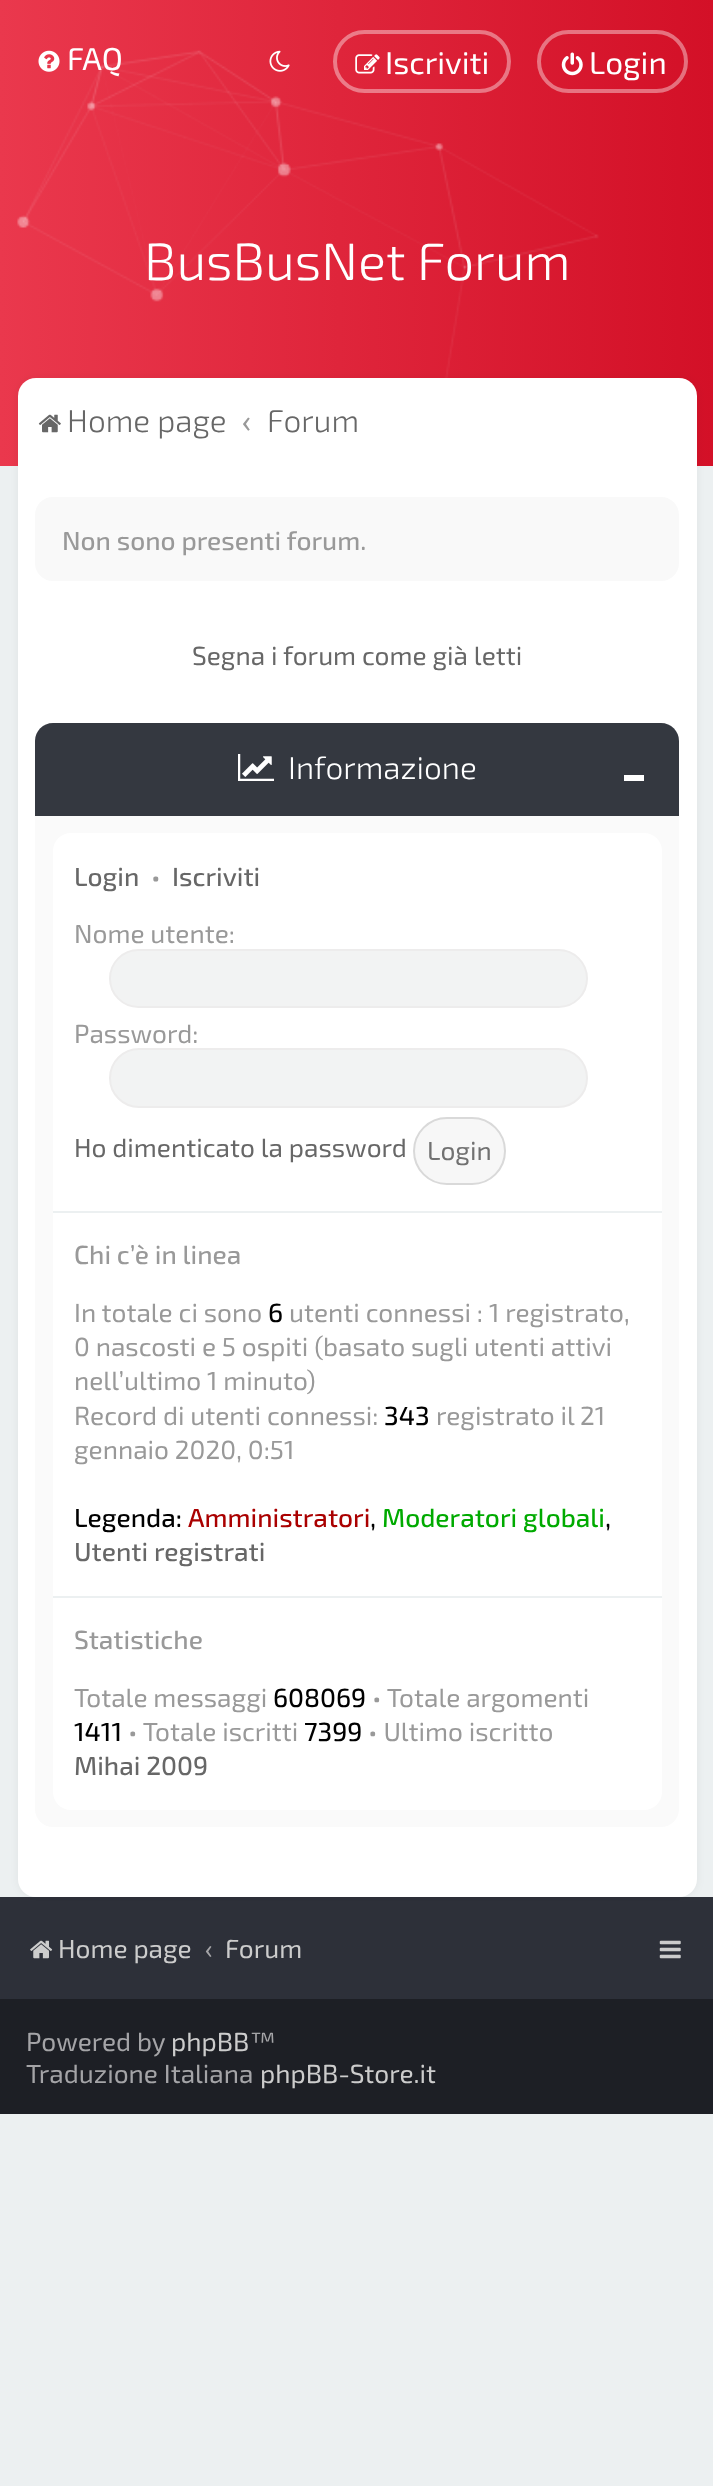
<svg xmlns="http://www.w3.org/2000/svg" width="713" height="2486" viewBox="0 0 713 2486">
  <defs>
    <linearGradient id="g1" gradientUnits="userSpaceOnUse" x1="0" y1="233" x2="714" y2="233"><stop offset="0" stop-color="#ea384d"/><stop offset="1" stop-color="#d31027"/></linearGradient>
    <filter id="blur1" x="-50%" y="-200%" width="200%" height="500%"><feGaussianBlur stdDeviation="4.5"/></filter>
  </defs>
  <rect width="100%" height="100%" fill="#ecf0f1"/>
  <rect x="0" y="0" width="713" height="466" fill="url(#g1)"/>
  <image x="17" y="50" width="582" height="328" href="img5.png"/>
  <image x="38" y="50" width="22" height="22" href="img1.png"/>
  <text x="67" y="70" font-family="'Exo 2'" font-size="31.5" fill="#ffffff">FAQ</text>
  <image x="269" y="50" width="21" height="22" href="img2.png"/>
  <rect x="335" y="32" width="174" height="59" rx="29.5" fill="none" stroke="#ffffff" stroke-opacity="0.4" stroke-width="4"/>
  <image x="355" y="54" width="25" height="20" href="img3.png"/>
  <text x="385" y="74" font-family="'Exo 2'" font-size="31.5" fill="#ffffff">Iscriviti</text>
  <rect x="539" y="32" width="147" height="59" rx="29.5" fill="none" stroke="#ffffff" stroke-opacity="0.4" stroke-width="4"/>
  <image x="561" y="52" width="22" height="24" href="img4.png"/>
  <text x="589" y="74" font-family="'Exo 2'" font-size="31.5" fill="#ffffff">Login</text>
  <text x="144" y="280" font-family="'Exo 2'" font-size="52.5" font-weight="300" fill="#ffffff">BusBusNet Forum</text>
  <rect x="0" y="1897" width="713" height="102" fill="#2d3039"/>
  <rect x="18" y="378" width="679" height="1519" rx="18" fill="#000000" fill-opacity="0.05" filter="url(#blur1)"/>
  <rect x="18" y="378" width="679" height="1519" rx="18" fill="#ffffff"/>
  <image x="38" y="414" width="23" height="19" href="img6.png"/>
  <text x="67" y="432" font-family="'Exo 2'" font-size="31.5" font-weight="300" fill="#676767">Home page</text>
  <text x="242" y="432" font-family="'Exo 2'" font-size="31.5" font-weight="500" fill="#999999">‹</text>
  <text x="267" y="432" font-family="'Exo 2'" font-size="31.5" font-weight="300" fill="#676767">Forum</text>
  <rect x="35" y="497" width="644" height="84" rx="18" fill="#f9f9f9"/>
  <text x="62" y="550" font-family="'Exo 2'" font-size="26.25" font-weight="500" fill="#999999">Non sono presenti forum.</text>
  <text x="192" y="665" font-family="'Exo 2'" font-size="26.25" fill="#676767">Segna i forum come già letti</text>
  <rect x="35" y="723" width="644" height="1104" rx="18" fill="#fafafa"/>
  <path d="M53 723H661C671 723 679 731 679 741V816H35V741C35 731 43 723 53 723Z" fill="#343840"/>
  <image x="238" y="754" width="36" height="27" href="img7.png"/>
  <text x="288" y="779" font-family="'Exo 2'" font-size="31.5" font-weight="300" fill="#ffffff">Informazione</text>
  <rect x="624" y="775" width="20" height="6" fill="#ffffff"/>
  <path d="M71 833H644C654 833 662 841 662 851V1213H53V851C53 841 61 833 71 833Z" fill="#ffffff"/>
  <rect x="53" y="1211" width="609" height="2" fill="#ecf0f1"/>
  <text x="74" y="886" font-family="'Exo 2'" font-size="26.25" font-weight="500" fill="#676767">Login</text>
  <text x="151" y="886" font-family="'Exo 2'" font-size="26.25" font-weight="500" fill="#999999">•</text>
  <text x="172" y="886" font-family="'Exo 2'" font-size="26.25" font-weight="500" fill="#676767">Iscriviti</text>
  <text x="74" y="943" font-family="'Exo 2'" font-size="26.25" fill="#999999">Nome utente:</text>
  <rect x="110" y="950" width="477" height="57" rx="28.5" fill="#f2f3f3" stroke="#edecec" stroke-width="2"/>
  <text x="74" y="1043" font-family="'Exo 2'" font-size="26.25" fill="#999999">Password:</text>
  <rect x="110" y="1049" width="477" height="58" rx="29" fill="#f2f3f3" stroke="#edecec" stroke-width="2"/>
  <text x="74" y="1157" font-family="'Exo 2'" font-size="26.25" fill="#676767">Ho dimenticato la password</text>
  <rect x="414" y="1118" width="91" height="66" rx="33" fill="#f7f7f7" stroke="#d9d9d9" stroke-width="2"/>
  <text x="427" y="1160" font-family="'Exo 2'" font-size="26.25" fill="#717171">Login</text>
  <rect x="53" y="1213" width="609" height="383" fill="#ffffff"/>
  <rect x="53" y="1596" width="609" height="2" fill="#ecf0f1"/>
  <text x="74" y="1264" font-family="'Exo 2'" font-size="26.25" font-weight="500" fill="#999999">Chi c’è in linea</text>
  <text x="74" y="1322" font-family="'Exo 2'" font-size="26.25" fill="#999999">In totale ci sono</text>
  <text x="268" y="1322" font-family="'Exo 2'" font-size="26.25" font-weight="500" fill="#000000">6</text>
  <text x="289" y="1322" font-family="'Exo 2'" font-size="26.25" fill="#999999">utenti connessi : 1 registrato,</text>
  <text x="74" y="1356" font-family="'Exo 2'" font-size="26.25" fill="#999999">0 nascosti e 5 ospiti (basato sugli utenti attivi</text>
  <text x="74" y="1390" font-family="'Exo 2'" font-size="26.25" fill="#999999">nell’ultimo 1 minuto)</text>
  <text x="74" y="1425" font-family="'Exo 2'" font-size="26.25" fill="#999999">Record di utenti connessi:</text>
  <text x="384" y="1425" font-family="'Exo 2'" font-size="26.25" font-weight="500" fill="#000000">343</text>
  <text x="436" y="1425" font-family="'Exo 2'" font-size="26.25" fill="#999999">registrato il 21</text>
  <text x="74" y="1459" font-family="'Exo 2'" font-size="26.25" fill="#999999">gennaio 2020, 0:51</text>
  <text x="74" y="1527" font-family="'Exo 2'" font-size="26.25" font-weight="500" fill="#000000">Legenda:</text>
  <text x="188" y="1527" font-family="'Exo 2'" font-size="26.25" font-weight="500" fill="#aa0000">Amministratori</text>
  <text x="370" y="1527" font-family="'Exo 2'" font-size="26.25" font-weight="500" fill="#000000">,</text>
  <text x="382" y="1527" font-family="'Exo 2'" font-size="26.25" font-weight="500" fill="#00aa00">Moderatori globali</text>
  <text x="605" y="1527" font-family="'Exo 2'" font-size="26.25" font-weight="500" fill="#000000">,</text>
  <text x="74" y="1561" font-family="'Exo 2'" font-size="26.25" font-weight="500" fill="#676767">Utenti registrati</text>
  <path d="M53 1598H662V1792C662 1802 654 1810 644 1810H71C61 1810 53 1802 53 1792Z" fill="#ffffff"/>
  <text x="74" y="1649" font-family="'Exo 2'" font-size="26.25" font-weight="500" fill="#999999">Statistiche</text>
  <text x="74" y="1707" font-family="'Exo 2'" font-size="26.25" fill="#999999">Totale messaggi</text>
  <text x="273" y="1707" font-family="'Exo 2'" font-size="26.25" font-weight="500" fill="#000000">608069</text>
  <text x="372" y="1707" font-family="'Exo 2'" font-size="26.25" fill="#999999">• Totale argomenti</text>
  <text x="74" y="1741" font-family="'Exo 2'" font-size="26.25" font-weight="500" fill="#000000">1411</text>
  <text x="128" y="1741" font-family="'Exo 2'" font-size="26.25" fill="#999999">• Totale iscritti</text>
  <text x="304" y="1741" font-family="'Exo 2'" font-size="26.25" font-weight="500" fill="#000000">7399</text>
  <text x="368" y="1741" font-family="'Exo 2'" font-size="26.25" fill="#999999">• Ultimo iscritto</text>
  <text x="74" y="1775" font-family="'Exo 2'" font-size="26.25" font-weight="500" fill="#676767">Mihai 2009</text>
  <image x="30" y="1940" width="23" height="19" href="img8.png"/>
  <text x="58" y="1958" font-family="'Exo 2'" font-size="26.25" fill="#cccccc">Home page</text>
  <text x="205" y="1958" font-family="'Exo 2'" font-size="26.25" font-weight="500" fill="#a4a4a7">‹</text>
  <text x="225" y="1958" font-family="'Exo 2'" font-size="26.25" fill="#cccccc">Forum</text>
  <image x="659" y="1940" width="22" height="19" href="img9.png"/>
  <rect x="0" y="1999" width="713" height="115" fill="#1d1f25"/>
  <text x="26" y="2051" font-family="'Exo 2'" font-size="26.25" fill="#a4a4a7">Powered by</text>
  <text x="171" y="2051" font-family="'Exo 2'" font-size="26.25" fill="#cccccc">phpBB</text>
  <text x="250" y="2051" font-family="'Exo 2'" font-size="26.25" fill="#a4a4a7">™</text>
  <text x="26" y="2083" font-family="'Exo 2'" font-size="26.25" fill="#a4a4a7">Traduzione Italiana</text>
  <text x="260" y="2083" font-family="'Exo 2'" font-size="26.25" fill="#cccccc">phpBB-Store.it</text>
</svg>
